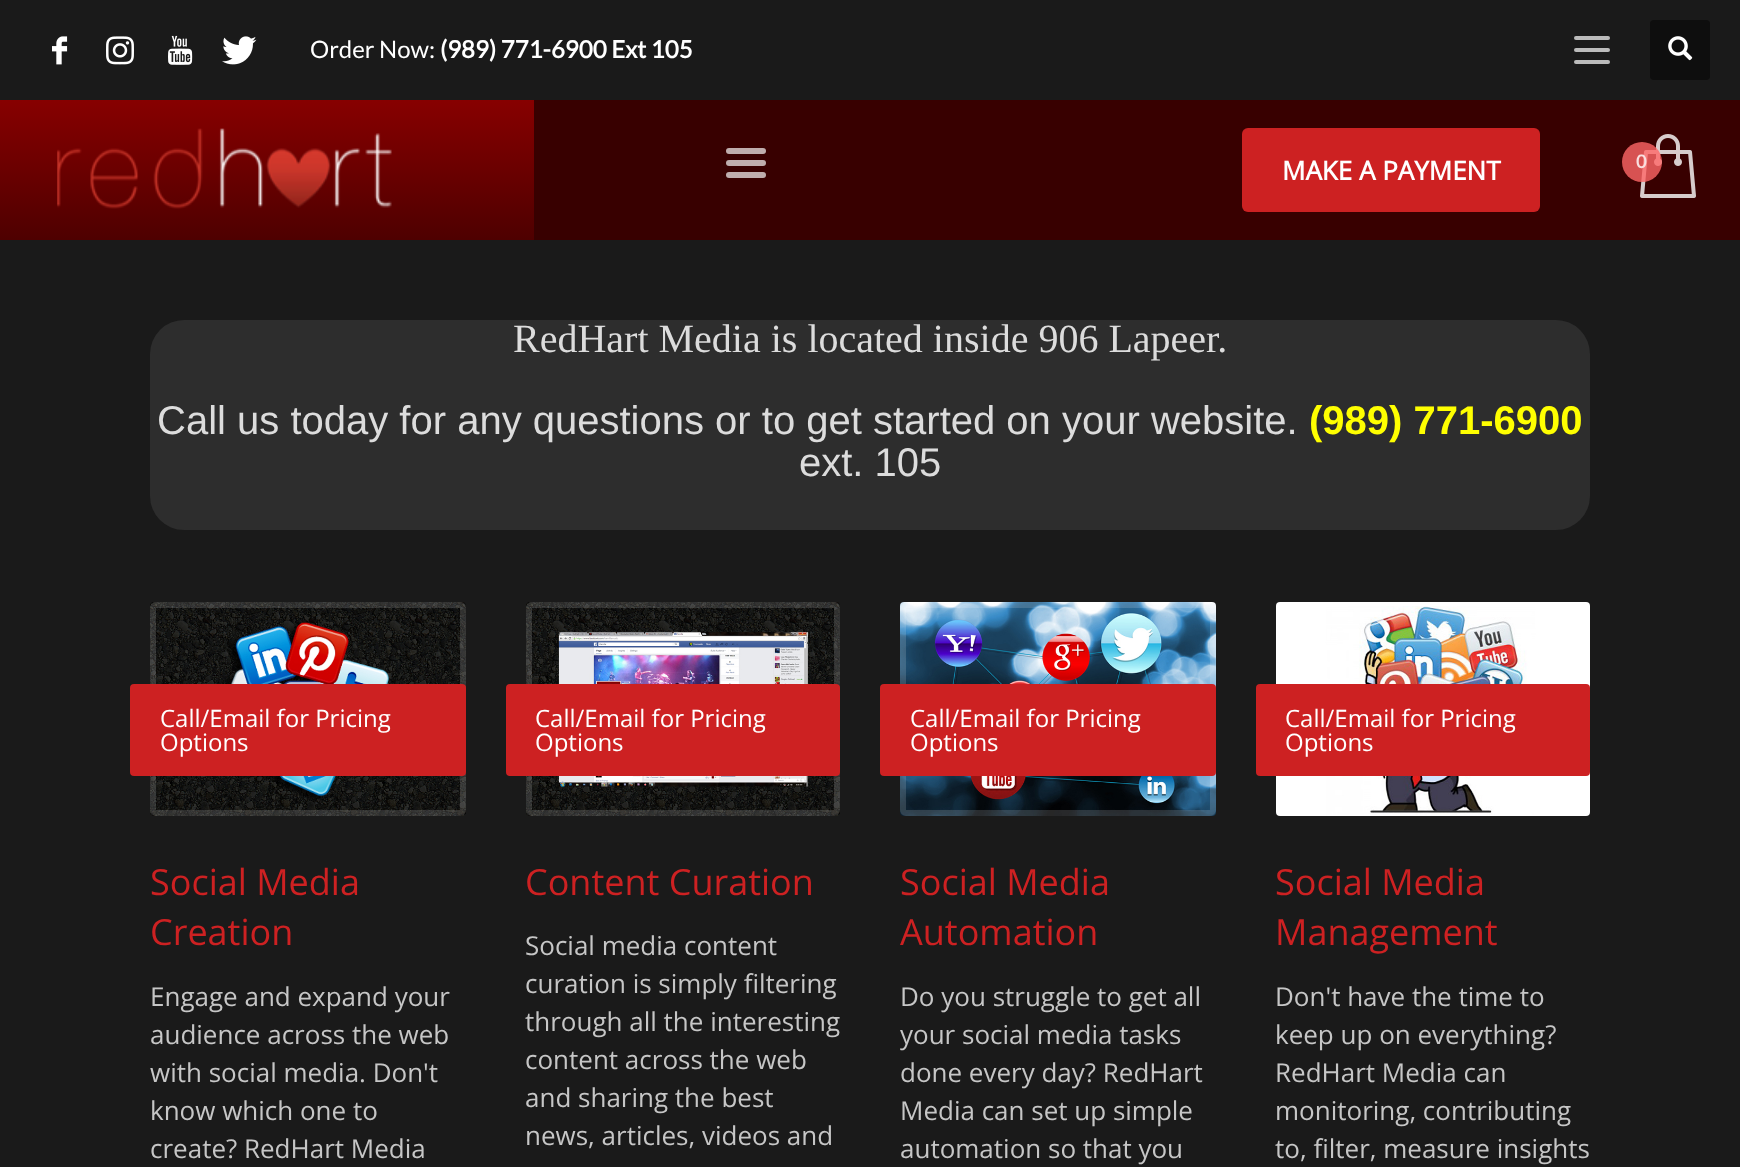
<svg xmlns="http://www.w3.org/2000/svg" width="1740" height="1167" viewBox="0 0 1740 1167">
  <defs>
    <linearGradient id="g1" gradientUnits="userSpaceOnUse" x1="-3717" y1="100" x2="-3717" y2="240"><stop offset="0" stop-color="#870000"/><stop offset="1" stop-color="#4e0000"/></linearGradient>
  </defs>
  <rect width="100%" height="100%" fill="#1a1a1a"/>
  <rect x="534" y="100" width="1206" height="140" fill="#380000"/>
  <image x="52" y="36" width="16" height="29" href="img1.png"/>
  <image x="106" y="36" width="28" height="29" href="img2.png"/>
  <image x="168" y="35" width="25" height="30" href="img3.png"/>
  <image x="222" y="36" width="35" height="29" href="img4.png"/>
  <text x="310" y="58" font-family="Lato" font-size="24" fill="#ffffff">Order Now:</text>
  <text x="440" y="58" font-family="Lato" font-size="24" font-weight="bold" fill="#ffffff">(989) 771-6900 Ext 105</text>
  <rect x="1574" y="60" width="36" height="4" rx="2" fill="#bbbbbb"/>
  <rect x="1574" y="48" width="36" height="4" rx="2" fill="#bbbbbb"/>
  <rect x="1574" y="36" width="36" height="4" rx="2" fill="#bbbbbb"/>
  <rect x="1650" y="20" width="60" height="60" rx="4" fill="#0e0e0e"/>
  <image x="1668" y="36" width="25" height="25" href="img5.png"/>
  <rect x="0" y="100" width="534" height="140" fill="url(#g1)"/>
  <image x="57" y="128" width="335" height="81" href="img6.png"/>
  <rect x="726" y="148" width="40" height="6" rx="3" fill="#bfadad"/>
  <rect x="726" y="160" width="40" height="6" rx="3" fill="#bfadad"/>
  <rect x="726" y="172" width="40" height="6" rx="3" fill="#bfadad"/>
  <rect x="1242" y="128" width="298" height="84" rx="6" fill="#cd2122"/>
  <text x="1282" y="180" font-family="Open Sans" font-size="26" font-weight="bold" fill="#ffffff">MAKE A PAYMENT</text>
  <image x="1640" y="134" width="56" height="64" href="img7.png"/>
  <circle cx="1642" cy="162" r="20" fill="#ff6666" fill-opacity="0.8"/>
  <text x="1636" y="168" font-family="Lato" font-size="18" font-weight="bold" fill="#f9dfdf">0</text>
  <rect x="150" y="320" width="1440" height="210" rx="34" fill="#2d2d2d"/>
  <text x="513" y="352" font-family="Liberation Serif" font-size="40" fill="#dcdcdc">RedHart Media is located inside 906 Lapeer.</text>
  <text x="157" y="434" font-family="Liberation Sans" font-size="40" fill="#dcdcdc">Call us today for any questions or to get started on your website.</text>
  <text x="1309" y="434" font-family="Liberation Sans" font-size="40" font-weight="bold" fill="#ffff00">(989) 771-6900</text>
  <text x="799" y="476" font-family="Liberation Sans" font-size="40" fill="#dcdcdc">ext. 105</text>
  <image x="150" y="602" width="316" height="214" href="img8.png"/>
  <rect x="153" y="605" width="310" height="208" rx="3" fill="none" stroke="#ffffff" stroke-opacity="0.15" stroke-width="6"/>
  <rect x="130" y="684" width="336" height="92" rx="4" fill="#cd2122"/>
  <text x="160" y="727" font-family="Open Sans" font-size="24" fill="#ffffff">Call/Email for Pricing</text>
  <text x="160" y="751" font-family="Open Sans" font-size="24" fill="#ffffff">Options</text>
  <text x="150" y="895" font-family="Open Sans" font-size="36" fill="#cd2122">Social Media</text>
  <text x="150" y="945" font-family="Open Sans" font-size="36" fill="#cd2122">Creation</text>
  <text x="150" y="1006" font-family="Open Sans" font-size="26" fill="#c6c6c6">Engage and expand your</text>
  <text x="150" y="1044" font-family="Open Sans" font-size="26" fill="#c6c6c6">audience across the web</text>
  <text x="150" y="1082" font-family="Open Sans" font-size="26" fill="#c6c6c6">with social media. Don't</text>
  <text x="150" y="1120" font-family="Open Sans" font-size="26" fill="#c6c6c6">know which one to</text>
  <text x="150" y="1158" font-family="Open Sans" font-size="26" fill="#c6c6c6">create? RedHart Media</text>
  <image x="526" y="602" width="314" height="214" href="img9.png"/>
  <rect x="529" y="605" width="308" height="208" rx="3" fill="none" stroke="#ffffff" stroke-opacity="0.15" stroke-width="6"/>
  <rect x="506" y="684" width="334" height="92" rx="4" fill="#cd2122"/>
  <text x="535" y="727" font-family="Open Sans" font-size="24" fill="#ffffff">Call/Email for Pricing</text>
  <text x="535" y="751" font-family="Open Sans" font-size="24" fill="#ffffff">Options</text>
  <text x="525" y="895" font-family="Open Sans" font-size="36" fill="#cd2122">Content Curation</text>
  <text x="525" y="955" font-family="Open Sans" font-size="26" fill="#c6c6c6">Social media content</text>
  <text x="525" y="993" font-family="Open Sans" font-size="26" fill="#c6c6c6">curation is simply filtering</text>
  <text x="525" y="1031" font-family="Open Sans" font-size="26" fill="#c6c6c6">through all the interesting</text>
  <text x="525" y="1069" font-family="Open Sans" font-size="26" fill="#c6c6c6">content across the web</text>
  <text x="525" y="1107" font-family="Open Sans" font-size="26" fill="#c6c6c6">and sharing the best</text>
  <text x="525" y="1145" font-family="Open Sans" font-size="26" fill="#c6c6c6">news, articles, videos and</text>
  <image x="900" y="602" width="316" height="214" href="img10.png"/>
  <rect x="903" y="605" width="310" height="208" rx="3" fill="none" stroke="#ffffff" stroke-opacity="0.15" stroke-width="6"/>
  <rect x="880" y="684" width="336" height="92" rx="4" fill="#cd2122"/>
  <text x="910" y="727" font-family="Open Sans" font-size="24" fill="#ffffff">Call/Email for Pricing</text>
  <text x="910" y="751" font-family="Open Sans" font-size="24" fill="#ffffff">Options</text>
  <text x="900" y="895" font-family="Open Sans" font-size="36" fill="#cd2122">Social Media</text>
  <text x="900" y="945" font-family="Open Sans" font-size="36" fill="#cd2122">Automation</text>
  <text x="900" y="1006" font-family="Open Sans" font-size="26" fill="#c6c6c6">Do you struggle to get all</text>
  <text x="900" y="1044" font-family="Open Sans" font-size="26" fill="#c6c6c6">your social media tasks</text>
  <text x="900" y="1082" font-family="Open Sans" font-size="26" fill="#c6c6c6">done every day? RedHart</text>
  <text x="900" y="1120" font-family="Open Sans" font-size="26" fill="#c6c6c6">Media can set up simple</text>
  <text x="900" y="1158" font-family="Open Sans" font-size="26" fill="#c6c6c6">automation so that you</text>
  <image x="1276" y="602" width="314" height="214" href="img11.png"/>
  <rect x="1279" y="605" width="308" height="208" rx="3" fill="none" stroke="#ffffff" stroke-opacity="0.15" stroke-width="6"/>
  <rect x="1256" y="684" width="334" height="92" rx="4" fill="#cd2122"/>
  <text x="1285" y="727" font-family="Open Sans" font-size="24" fill="#ffffff">Call/Email for Pricing</text>
  <text x="1285" y="751" font-family="Open Sans" font-size="24" fill="#ffffff">Options</text>
  <text x="1275" y="895" font-family="Open Sans" font-size="36" fill="#cd2122">Social Media</text>
  <text x="1275" y="945" font-family="Open Sans" font-size="36" fill="#cd2122">Management</text>
  <text x="1275" y="1006" font-family="Open Sans" font-size="26" fill="#c6c6c6">Don't have the time to</text>
  <text x="1275" y="1044" font-family="Open Sans" font-size="26" fill="#c6c6c6">keep up on everything?</text>
  <text x="1275" y="1082" font-family="Open Sans" font-size="26" fill="#c6c6c6">RedHart Media can</text>
  <text x="1275" y="1120" font-family="Open Sans" font-size="26" fill="#c6c6c6">monitoring, contributing</text>
  <text x="1275" y="1158" font-family="Open Sans" font-size="26" fill="#c6c6c6">to, filter, measure insights</text>
</svg>
